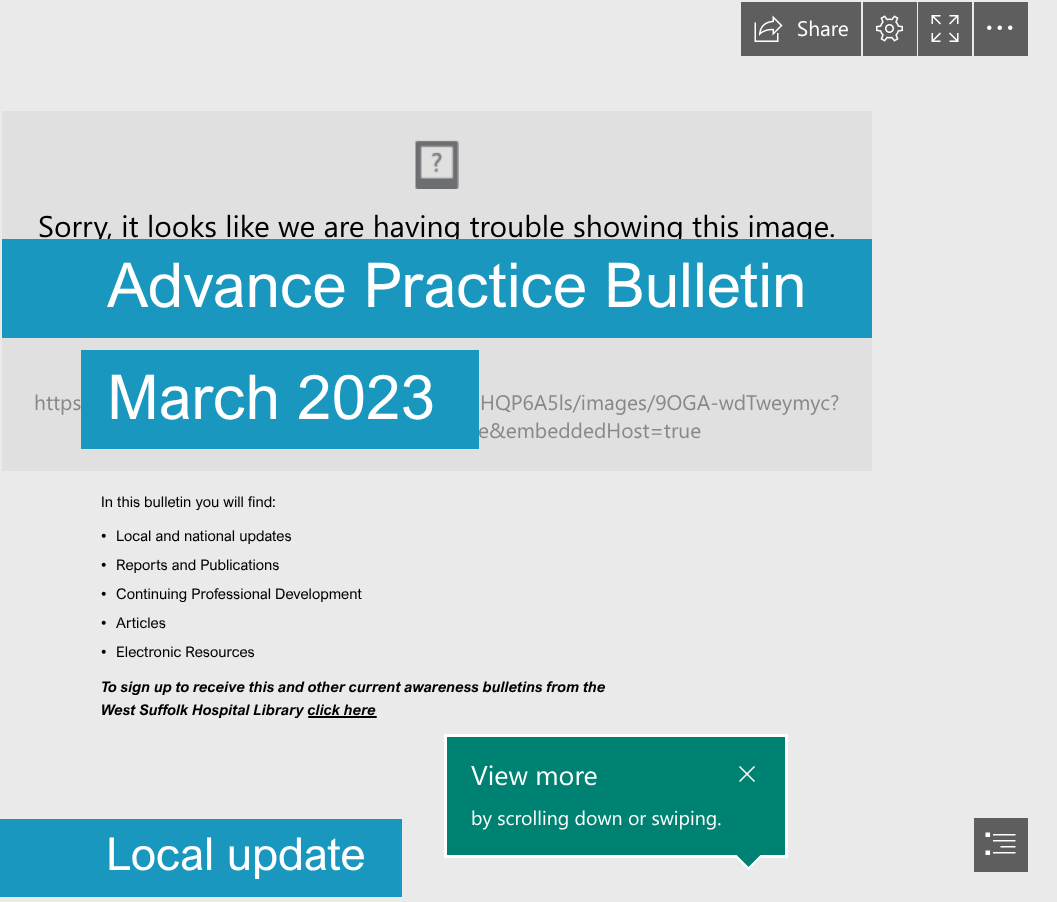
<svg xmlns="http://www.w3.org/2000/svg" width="1057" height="902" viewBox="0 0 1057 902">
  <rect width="100%" height="100%" fill="#eaeaea"/>
  <rect x="741" y="2" width="120" height="54" fill="#5e5e5e"/>
  <image x="754" y="15" width="29" height="27" href="img1.png"/>
  <text x="797" y="36" font-family="Segoe UI" font-size="21" fill="#ffffff">Share</text>
  <rect x="863" y="2" width="54" height="54" fill="#5e5e5e"/>
  <image x="876" y="15" width="27" height="27" href="img2.png"/>
  <rect x="918" y="2" width="54" height="54" fill="#5e5e5e"/>
  <image x="931" y="15" width="28" height="27" href="img3.png"/>
  <rect x="974" y="2" width="54" height="54" fill="#5e5e5e"/>
  <image x="987" y="25" width="26" height="5" href="img4.png"/>
  <rect x="2" y="111" width="870" height="360" fill="#e0e0e0"/>
  <image x="415" y="140" width="44" height="49" href="img5.png"/>
  <text x="38" y="237" font-family="Segoe UI" font-size="30" fill="#000000">Sorry, it looks like we are having trouble showing this image.</text>
  <text x="34" y="410" font-family="Segoe UI" font-size="21" fill="#888888">https</text>
  <text x="480" y="410" font-family="Segoe UI" font-size="21" fill="#888888">HQP6A5ls/images/9OGA-wdTweymyc?</text>
  <text x="478" y="438" font-family="Segoe UI" font-size="21" fill="#888888">e&amp;embeddedHost=true</text>
  <rect x="2" y="239" width="870" height="99" fill="#1997be"/>
  <text x="107" y="307" font-family="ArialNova" font-size="62" fill="#ffffff">Advance Practice Bulletin</text>
  <rect x="81" y="350" width="398" height="99" fill="#1997be"/>
  <text x="107" y="419" font-family="ArialNova" font-size="62" fill="#ffffff">March 2023</text>
  <text x="101" y="507" font-family="ArialNova" font-size="14.85" fill="#000000">In this bulletin you will find:</text>
  <text x="101" y="541" font-family="ArialNova" font-size="14.85" fill="#000000">•</text>
  <text x="116" y="541" font-family="ArialNova" font-size="14.85" fill="#000000">Local and national updates</text>
  <text x="101" y="570" font-family="ArialNova" font-size="14.85" fill="#000000">•</text>
  <text x="116" y="570" font-family="ArialNova" font-size="14.85" fill="#000000">Reports and Publications</text>
  <text x="101" y="599" font-family="ArialNova" font-size="14.85" fill="#000000">•</text>
  <text x="116" y="599" font-family="ArialNova" font-size="14.85" fill="#000000">Continuing Professional Development</text>
  <text x="101" y="628" font-family="ArialNova" font-size="14.85" fill="#000000">•</text>
  <text x="116" y="628" font-family="ArialNova" font-size="14.85" fill="#000000">Articles</text>
  <text x="101" y="657" font-family="ArialNova" font-size="14.85" fill="#000000">•</text>
  <text x="116" y="657" font-family="ArialNova" font-size="14.85" fill="#000000">Electronic Resources</text>
  <text x="101" y="692" font-family="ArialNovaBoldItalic" font-size="14.85" font-weight="bold" font-style="italic" fill="#000000">To sign up to receive this and other current awareness bulletins from the</text>
  <text x="101" y="715" font-family="ArialNovaBoldItalic" font-size="14.85" font-weight="bold" font-style="italic" fill="#000000">West Suffolk Hospital Library click here</text>
  <rect x="308" y="716" width="69" height="2" rx="1" fill="#000000"/>
  <rect x="0" y="819" width="402" height="78" fill="#1997be"/>
  <text x="106" y="870" font-family="ArialNova" font-size="45.5" fill="#ffffff">Local update</text>
  <rect x="445.5" y="735.5" width="341" height="121" fill="#008272" stroke="#ffffff" stroke-width="3"/>
  <text x="471" y="785" font-family="Segoe UI" font-size="27" fill="#ffffff">View more</text>
  <text x="471" y="825" font-family="Segoe UI" font-size="19.5" fill="#ffffff">by scrolling down or swiping.</text>
  <image x="739" y="766" width="16" height="16" href="img6.png"/>
  <path d="M733.5 855H763.5L748.5 870Z" fill="#ffffff"/>
  <path d="M736.5 855H760.5L748.5 867Z" fill="#008272"/>
  <rect x="974" y="818" width="54" height="54" fill="#5e5e5e"/>
  <image x="985" y="832" width="31" height="23" href="img7.png"/>
</svg>
